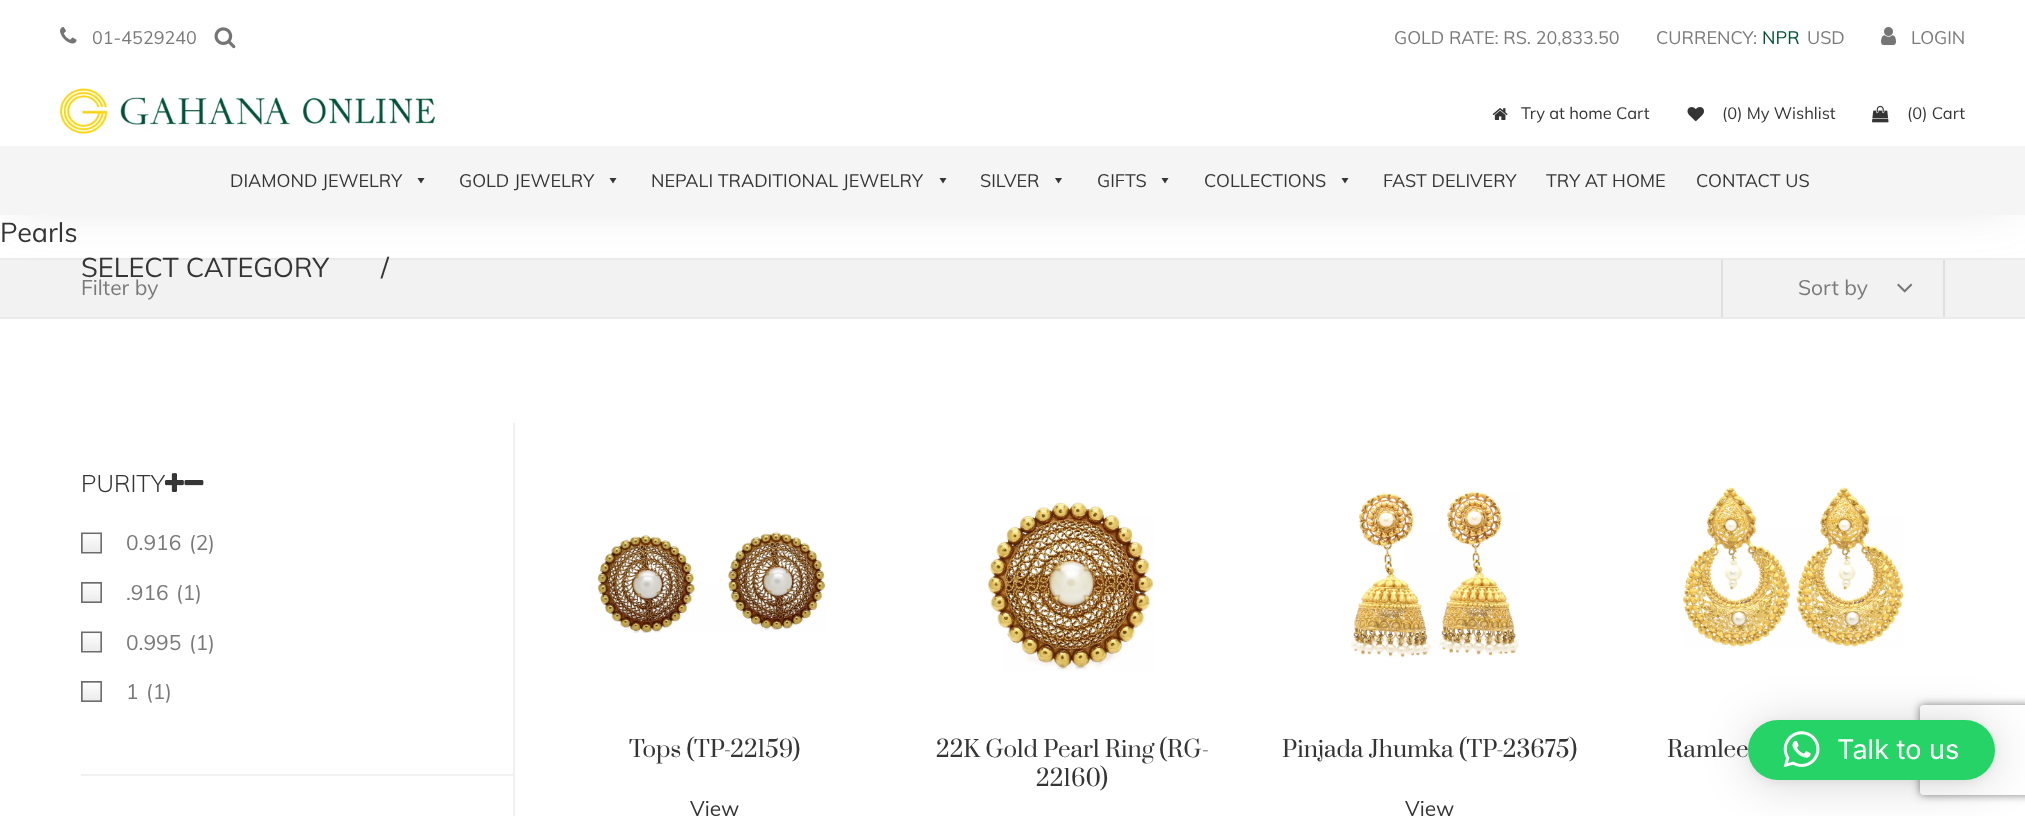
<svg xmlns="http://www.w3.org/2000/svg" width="2025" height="816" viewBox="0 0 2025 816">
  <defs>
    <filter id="blur1" x="-50%" y="-200%" width="200%" height="500%"><feGaussianBlur stdDeviation="22.5"/></filter>
    <clipPath id="clip1"><path d="M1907 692H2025V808H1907ZM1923 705H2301C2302.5 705 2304 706.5 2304 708V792C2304 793.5 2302.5 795 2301 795H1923C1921.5 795 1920 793.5 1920 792V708C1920 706.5 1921.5 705 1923 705Z" clip-rule="evenodd"/></clipPath>
    <filter id="blur2" x="-50%" y="-200%" width="200%" height="500%"><feGaussianBlur stdDeviation="4"/></filter>
    <filter id="blur3" x="-50%" y="-200%" width="200%" height="500%"><feGaussianBlur stdDeviation="24"/></filter>
    <filter id="blur4" x="-50%" y="-200%" width="200%" height="500%"><feGaussianBlur stdDeviation="4.5"/></filter>
  </defs>
  <rect width="100%" height="100%" fill="#ffffff"/>
  <rect x="0" y="260" width="2025" height="57" fill="#f2f2f2"/>
  <rect x="0" y="258" width="2025" height="2" fill="#ebebeb"/>
  <rect x="1943" y="260" width="2" height="57" fill="#dfdfdf"/>
  <rect x="1721" y="260" width="2" height="57" fill="#dfdfdf"/>
  <rect x="15" y="23" width="1995" height="184" fill="#cbcbcb" fill-opacity="0.5" filter="url(#blur1)"/>
  <rect x="0" y="0" width="2025" height="146" fill="#ffffff"/>
  <image x="60" y="27" width="17" height="17" href="img1.png"/>
  <text x="92" y="44" font-family="Muli" font-size="18" fill="#7a7a7a">01-4529240</text>
  <image x="214" y="27" width="22" height="22" href="img2.png"/>
  <text x="1394" y="44" font-family="Muli" font-size="18" fill="#7a7a7a">GOLD RATE: RS. 20,833.50</text>
  <text x="1656" y="44" font-family="Muli" font-size="18" fill="#7a7a7a">CURRENCY:</text>
  <text x="1762" y="44" font-family="Muli" font-size="18" fill="#005134">NPR</text>
  <text x="1807" y="44" font-family="Muli" font-size="18" fill="#7a7a7a">USD</text>
  <image x="1881" y="27" width="15" height="18" href="img3.png"/>
  <text x="1911" y="44" font-family="Muli" font-size="18" fill="#7a7a7a">LOGIN</text>
  <image x="60" y="88" width="375" height="46" href="img4.png"/>
  <image x="1492" y="108" width="16" height="12" href="img5.png"/>
  <text x="1521" y="119" font-family="Muli" font-size="16.5" fill="#353535">Try at home Cart</text>
  <image x="1687" y="107" width="17" height="15" href="img6.png"/>
  <text x="1722" y="119" font-family="Muli" font-size="16.5" fill="#353535">(0) My Wishlist</text>
  <image x="1872" y="105" width="17" height="18" href="img7.png"/>
  <text x="1907" y="119" font-family="Muli" font-size="16.5" fill="#353535">(0) Cart</text>
  <rect x="0" y="146" width="2025" height="69" fill="#f5f5f5"/>
  <text x="230" y="187" font-family="Muli" font-size="18" fill="#353535">DIAMOND JEWELRY</text>
  <path d="M424.5 178L421 183.5L417.5 178Z" fill="#353535"/>
  <text x="459" y="187" font-family="Muli" font-size="18" fill="#353535">GOLD JEWELRY</text>
  <path d="M616.5 178L613 183.5L609.5 178Z" fill="#353535"/>
  <text x="651" y="187" font-family="Muli" font-size="18" fill="#353535">NEPALI TRADITIONAL JEWELRY</text>
  <path d="M946.5 178L943 183.5L939.5 178Z" fill="#353535"/>
  <text x="980" y="187" font-family="Muli" font-size="18" fill="#353535">SILVER</text>
  <path d="M1062 178L1058.5 183.5L1055 178Z" fill="#353535"/>
  <text x="1097" y="187" font-family="Muli" font-size="18" fill="#353535">GIFTS</text>
  <path d="M1168.5 178L1165 183.5L1161.5 178Z" fill="#353535"/>
  <text x="1204" y="187" font-family="Muli" font-size="18" fill="#353535">COLLECTIONS</text>
  <path d="M1348.5 178L1345 183.5L1341.5 178Z" fill="#353535"/>
  <text x="1383" y="187" font-family="Muli" font-size="18" fill="#353535">FAST DELIVERY</text>
  <text x="1546" y="187" font-family="Muli" font-size="18" fill="#353535">TRY AT HOME</text>
  <text x="1696" y="187" font-family="Muli" font-size="18" fill="#353535">CONTACT US</text>
  <text x="0" y="242" font-family="Muli" font-size="27" fill="#353535">Pearls</text>
  <text x="81" y="277" font-family="Muli" font-size="27" fill="#353535">SELECT CATEGORY</text>
  <text x="381" y="277" font-family="Muli" font-size="27" fill="#353535">/</text>
  <rect x="0" y="317" width="2025" height="2" fill="#ebebeb"/>
  <text x="81" y="295" font-family="Muli" font-size="21" fill="#7a7a7a">Filter by</text>
  <text x="1798" y="295" font-family="Muli" font-size="21" fill="#7a7a7a">Sort by</text>
  <image x="1897" y="283" width="16" height="10" href="img8.png"/>
  <rect x="81" y="774" width="432" height="2" fill="#f1f1f1"/>
  <text x="81" y="492" font-family="Muli" font-size="24" font-weight="300" fill="#353535">PURITY</text>
  <image x="165" y="473" width="19" height="19" href="img9.png"/>
  <image x="184" y="480" width="20" height="6" href="img10.png"/>
  <image x="81" y="532" width="21" height="22" href="img11.png"/>
  <text x="126" y="550" font-family="Muli" font-size="21" fill="#7a7a7a">0.916</text>
  <text x="189" y="550" font-family="Muli" font-size="21" fill="#7a7a7a">(2)</text>
  <image x="81" y="582" width="21" height="21" href="img12.png"/>
  <text x="126" y="600" font-family="Muli" font-size="21" fill="#7a7a7a">.916</text>
  <text x="176" y="600" font-family="Muli" font-size="21" fill="#7a7a7a">(1)</text>
  <image x="81" y="631" width="21" height="22" href="img11.png"/>
  <text x="126" y="650" font-family="Muli" font-size="21" fill="#7a7a7a">0.995</text>
  <text x="189" y="650" font-family="Muli" font-size="21" fill="#7a7a7a">(1)</text>
  <image x="81" y="681" width="21" height="21" href="img12.png"/>
  <text x="126" y="699" font-family="Muli" font-size="21" fill="#7a7a7a">1</text>
  <text x="146" y="699" font-family="Muli" font-size="21" fill="#7a7a7a">(1)</text>
  <rect x="513" y="423" width="2" height="393" fill="#f1f1f1"/>
  <image x="597" y="532" width="229" height="101" href="img13.png"/>
  <text x="629" y="757" font-family="Prata" font-size="22.5" fill="#353535">Tops (TP-22159)</text>
  <text x="690" y="816" font-family="Muli" font-size="21" fill="#353535">View</text>
  <image x="988" y="502" width="166" height="169" href="img14.png"/>
  <text x="936" y="757" font-family="Prata" font-size="22.5" fill="#353535">22K Gold Pearl Ring (RG-</text>
  <text x="1036" y="786" font-family="Prata" font-size="22.5" fill="#353535">22160)</text>
  <image x="1351" y="491" width="168" height="166" href="img15.png"/>
  <text x="1282" y="757" font-family="Prata" font-size="22.5" fill="#353535">Pinjada Jhumka (TP-23675)</text>
  <text x="1405" y="816" font-family="Muli" font-size="21" fill="#353535">View</text>
  <image x="1683" y="487" width="221" height="160" href="img16.png"/>
  <text x="1667" y="757" font-family="Prata" font-size="22.5" fill="#353535">Ramlee</text>
  <g clip-path="url(#clip1)">
    <rect x="1920" y="705" width="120" height="90" rx="3" fill="#808080" filter="url(#blur2)"/>
  </g>
  <rect x="1748" y="723" width="247" height="60" rx="30" fill="#000000" fill-opacity="0.16" filter="url(#blur3)"/>
  <rect x="1748" y="722" width="247" height="60" rx="30" fill="#000000" fill-opacity="0.06" filter="url(#blur4)"/>
  <rect x="1748" y="720" width="247" height="60" rx="30" fill="#25d366"/>
  <image x="1783" y="731" width="37" height="37" href="img17.png"/>
  <text x="1837" y="759" font-family="Inter" font-size="27" fill="#ffffff">Talk to us</text>
</svg>
